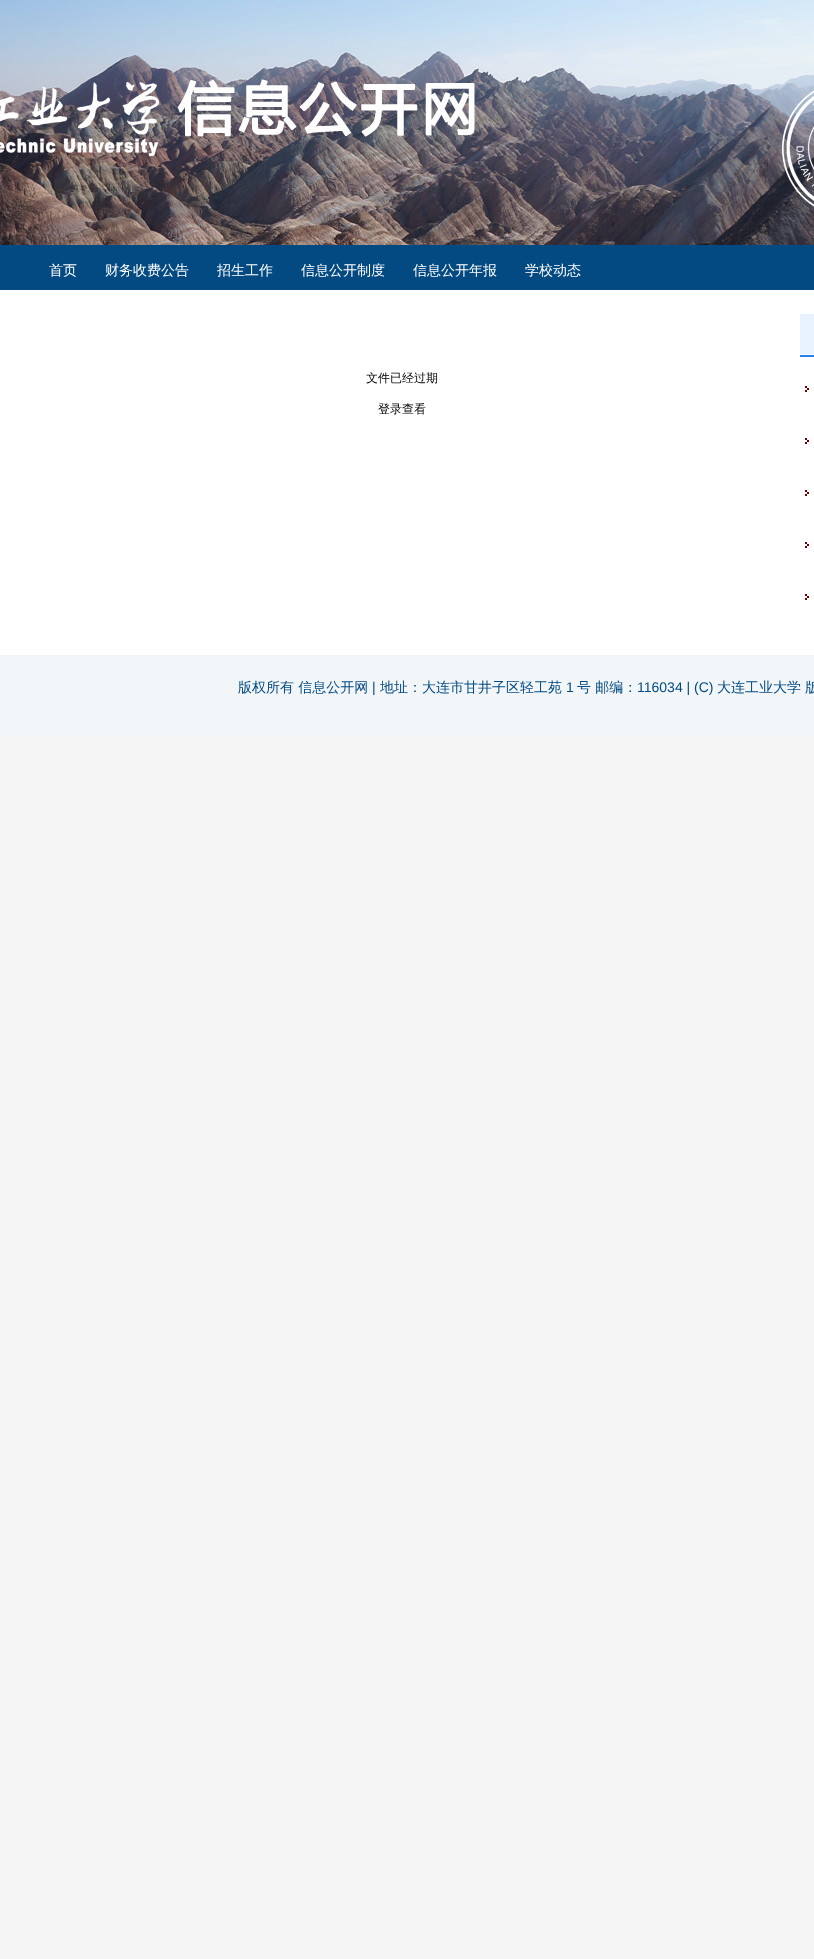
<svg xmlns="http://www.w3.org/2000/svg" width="814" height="1959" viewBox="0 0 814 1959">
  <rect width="100%" height="100%" fill="#f5f5f5"/>
  <image x="0" y="0" width="814" height="245" href="img1.png"/>
  <rect x="0" y="245" width="814" height="45" fill="#034a82"/>
  <text x="49" y="275" font-family="WenQuanYi Zen Hei" font-size="14" font-weight="500" fill="#ffffff">首页</text>
  <text x="105" y="275" font-family="WenQuanYi Zen Hei" font-size="14" font-weight="500" fill="#ffffff">财务收费公告</text>
  <text x="217" y="275" font-family="WenQuanYi Zen Hei" font-size="14" font-weight="500" fill="#ffffff">招生工作</text>
  <text x="301" y="275" font-family="WenQuanYi Zen Hei" font-size="14" font-weight="500" fill="#ffffff">信息公开制度</text>
  <text x="413" y="275" font-family="WenQuanYi Zen Hei" font-size="14" font-weight="500" fill="#ffffff">信息公开年报</text>
  <text x="525" y="275" font-family="WenQuanYi Zen Hei" font-size="14" font-weight="500" fill="#ffffff">学校动态</text>
  <rect x="0" y="290" width="814" height="365" fill="#ffffff"/>
  <text x="366" y="382" font-family="WenQuanYi Zen Hei" font-size="12" font-weight="500" fill="#000000">文件已经过期</text>
  <text x="378" y="413" font-family="WenQuanYi Zen Hei" font-size="12" font-weight="500" fill="#000000">登录查看</text>
  <rect x="800" y="314" width="14" height="40" fill="#e8f3ff"/>
  <image x="800" y="354" width="14" height="8" href="img2.png"/>
  <image x="805" y="386" width="4" height="6" href="img3.png"/>
  <image x="805" y="438" width="4" height="6" href="img3.png"/>
  <image x="805" y="490" width="4" height="6" href="img3.png"/>
  <image x="805" y="542" width="4" height="6" href="img3.png"/>
  <image x="805" y="594" width="4" height="6" href="img3.png"/>
  <rect x="0" y="655" width="814" height="81" fill="#f2f6f9"/>
  <text x="238" y="692" font-family="WenQuanYi Zen Hei" font-size="14" font-weight="500" fill="#034a82">版权所有 信息公开网</text>
  <text x="372" y="692" font-family="Liberation Sans" font-size="14" fill="#034a82">|</text>
  <text x="380" y="692" font-family="WenQuanYi Zen Hei" font-size="14" font-weight="500" fill="#034a82">地址：大连市甘井子区轻工苑</text>
  <text x="566" y="692" font-family="Liberation Sans" font-size="14" fill="#034a82">1</text>
  <text x="577" y="692" font-family="WenQuanYi Zen Hei" font-size="14" font-weight="500" fill="#034a82">号 邮编：</text>
  <text x="637" y="692" font-family="Liberation Sans" font-size="14" fill="#034a82">116034 | (C)</text>
  <text x="717" y="692" font-family="WenQuanYi Zen Hei" font-size="14" font-weight="500" fill="#034a82">大连工业大学 版</text>
</svg>
